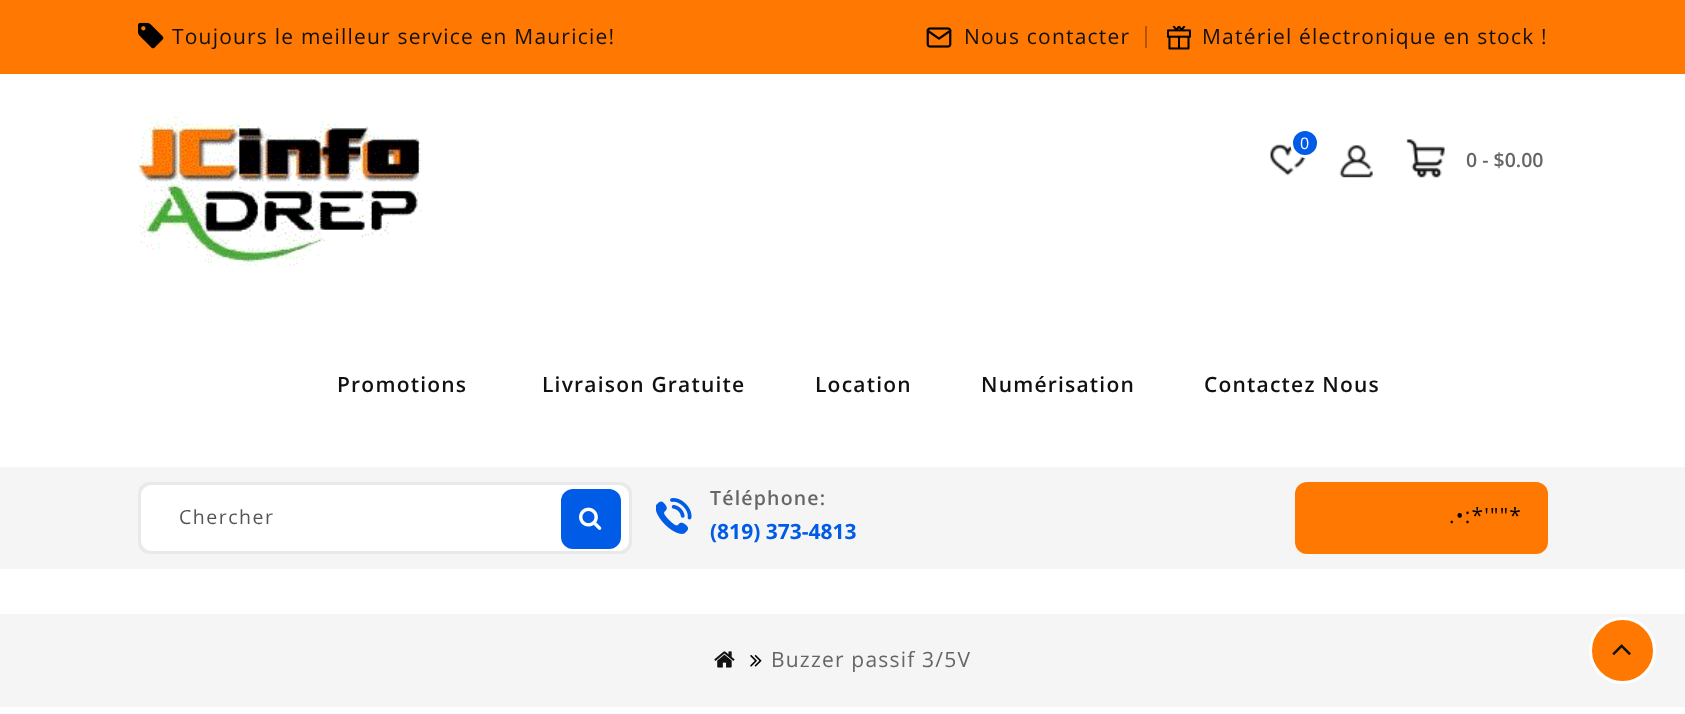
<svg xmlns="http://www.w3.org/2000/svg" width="1685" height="714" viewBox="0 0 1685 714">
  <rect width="100%" height="100%" fill="#ffffff"/>
  <rect x="0" y="0" width="1685" height="74" fill="#ff7802"/>
  <image x="138" y="22" width="26" height="27" href="img1.png"/>
  <text x="172" y="44" font-family="Open Sans" font-size="21" letter-spacing="1.2" fill="#111111">Toujours le meilleur service en Mauricie!</text>
  <image x="926" y="27" width="26" height="21" href="img2.png"/>
  <text x="964" y="44" font-family="Open Sans" font-size="21" letter-spacing="1.2" fill="#111111">Nous contacter</text>
  <rect x="1145" y="26" width="2" height="22" fill="#b35401"/>
  <image x="1167" y="26" width="24" height="24" href="img3.png"/>
  <text x="1202" y="44" font-family="Open Sans" font-size="21" letter-spacing="1.2" fill="#111111">Matériel électronique en stock !</text>
  <image x="138" y="112" width="284" height="154" href="img4.png"/>
  <image x="1270" y="144" width="36" height="32" href="img5.png"/>
  <circle cx="1305" cy="143" r="13.5" fill="#005ce6" stroke="#ffffff" stroke-width="3"/>
  <text x="1300" y="149" font-family="Open Sans" font-size="16" letter-spacing="1.2" fill="#ffffff">0</text>
  <image x="1339" y="145" width="34" height="33" href="img6.png"/>
  <image x="1406" y="139" width="39" height="39" href="img7.png"/>
  <text x="1466" y="167" font-family="Open Sans" font-size="19.5" font-weight="600" fill="#666666">0 - $0.00</text>
  <text x="337" y="392" font-family="Open Sans" font-size="21" font-weight="600" letter-spacing="1.2" fill="#111111">Promotions</text>
  <text x="542" y="392" font-family="Open Sans" font-size="21" font-weight="600" letter-spacing="1.2" fill="#111111">Livraison Gratuite</text>
  <text x="815" y="392" font-family="Open Sans" font-size="21" font-weight="600" letter-spacing="1.2" fill="#111111">Location</text>
  <text x="981" y="392" font-family="Open Sans" font-size="21" font-weight="600" letter-spacing="1.2" fill="#111111">Numérisation</text>
  <text x="1204" y="392" font-family="Open Sans" font-size="21" font-weight="600" letter-spacing="1.2" fill="#111111">Contactez Nous</text>
  <rect x="0" y="467" width="1685" height="102" fill="#f5f5f5"/>
  <rect x="139.5" y="483.5" width="491" height="69" rx="10.5" fill="none" stroke="#e9e9e9" stroke-width="3"/>
  <rect x="141" y="485" width="488" height="66" rx="12" fill="#ffffff"/>
  <text x="179" y="524" font-family="Open Sans" font-size="19.5" letter-spacing="1.5" fill="#555555">Chercher</text>
  <rect x="561" y="489" width="60" height="60" rx="12" fill="#005ce6"/>
  <image x="579" y="507" width="23" height="23" href="img8.png"/>
  <image x="656" y="498" width="36" height="36" href="img9.png"/>
  <text x="710" y="505" font-family="Open Sans" font-size="19.5" font-weight="600" letter-spacing="1.2" fill="#666666">Téléphone:</text>
  <text x="710" y="539" font-family="Open Sans" font-size="21" font-weight="bold" fill="#005ce6">(819) 373-4813</text>
  <rect x="1295" y="482" width="253" height="72" rx="12" fill="#ff7802"/>
  <text x="1449" y="523" font-family="Open Sans" font-size="21" letter-spacing="1.2" fill="#000000">.•:*'""*</text>
  <rect x="0" y="614" width="1685" height="93" fill="#f5f5f5"/>
  <image x="714" y="651" width="21" height="17" href="img10.png"/>
  <image x="750" y="655" width="12" height="12" href="img11.png"/>
  <text x="771" y="667" font-family="Open Sans" font-size="21" letter-spacing="1.2" fill="#666666">Buzzer passif 3/5V</text>
  <circle cx="1622.5" cy="650.5" r="32" fill="#ff7802" stroke="#ffffff" stroke-width="3"/>
  <image x="1612" y="644" width="19" height="11" href="img12.png"/>
</svg>
